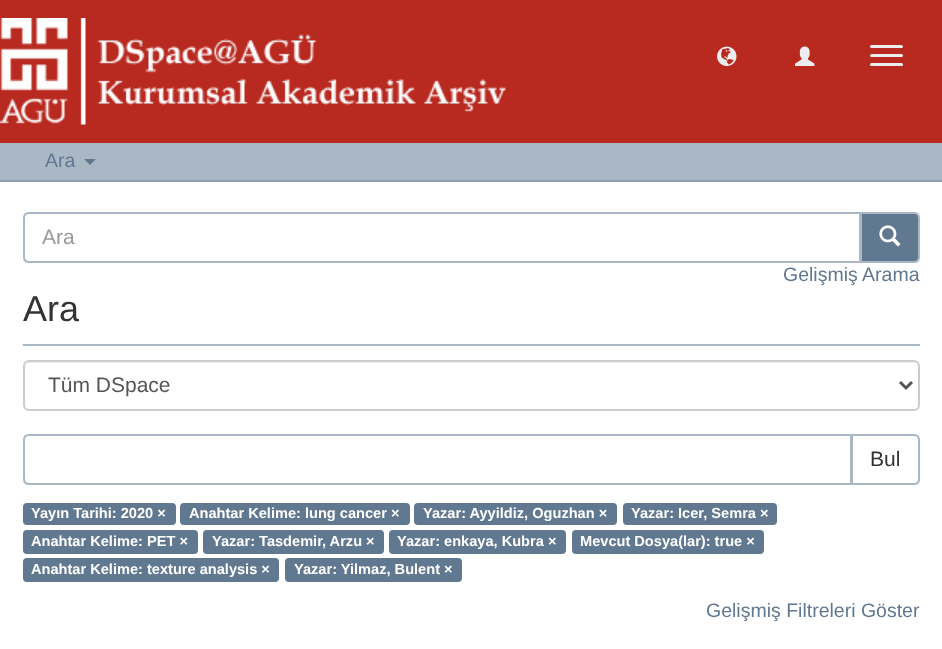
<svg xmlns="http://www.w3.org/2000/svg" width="942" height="649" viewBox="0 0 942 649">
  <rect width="100%" height="100%" fill="#aab8c6"/>
  <rect x="0" y="0" width="942" height="143" fill="#b82920"/>
  <image x="0" y="18" width="506" height="107" href="img1.png"/>
  <image x="717" y="46" width="20" height="20" href="img2.png"/>
  <image x="795" y="46" width="20" height="20" href="img3.png"/>
  <rect x="870" y="45" width="33" height="3" rx="1.5" fill="#eeeeee"/>
  <rect x="870" y="54" width="33" height="3" rx="1.5" fill="#eeeeee"/>
  <rect x="870" y="63" width="33" height="3" rx="1.5" fill="#eeeeee"/>
  <rect x="0" y="180" width="942" height="2" fill="#8b9eb2"/>
  <text x="45" y="167" font-family="Liberation Sans" font-size="19.5" fill="#607890">Ara</text>
  <path d="M84 159H96L90 165Z" fill="#607890"/>
  <rect x="0" y="182" width="942" height="467" fill="#ffffff"/>
  <path d="M861 213H914C917 213 919 215 919 218V257C919 260 917 262 914 262H861Z" fill="#607890" stroke="#aab8c6" stroke-width="2"/>
  <path d="M29 213H860V262H29C26 262 24 260 24 257V218C24 215 26 213 29 213Z" fill="#ffffff" stroke="#aab8c6" stroke-width="2"/>
  <text x="42" y="244" font-family="Liberation Sans" font-size="21" fill="#999999">Ara</text>
  <image x="879" y="225" width="22" height="22" href="img4.png"/>
  <text x="783" y="281" font-family="Liberation Sans" font-size="19.5" fill="#607890">Gelişmiş Arama</text>
  <rect x="23" y="344" width="897" height="2" fill="#aab8c6"/>
  <text x="23" y="321" font-family="Liberation Sans" font-size="36" fill="#333333">Ara</text>
  <path d="M28 363H914C916 363 918 365 918 368V367C918 364 916 362 913 362H29C26 362 24 364 24 367V368C24 365 26 363 28 363Z" fill="#ececec"/>
  <rect x="24" y="361" width="895" height="49" rx="5" fill="none" stroke="#cccccc" stroke-width="2"/>
  <path d="M900 382L906 388L912 382" fill="none" stroke="#555555" stroke-width="3"/>
  <text x="48" y="392" font-family="Liberation Sans" font-size="21" fill="#555555">Tüm DSpace</text>
  <path d="M852 435H914C917 435 919 437 919 440V479C919 482 917 484 914 484H852Z" fill="none" stroke="#aab8c6" stroke-width="2"/>
  <path d="M29 435H851V484H29C26 484 24 482 24 479V440C24 437 26 435 29 435Z" fill="#ffffff" stroke="#aab8c6" stroke-width="2"/>
  <text x="870" y="466" font-family="Liberation Sans" font-size="21" fill="#333333">Bul</text>
  <rect x="23" y="503" width="153" height="22" rx="4" fill="#607890"/>
  <text x="31" y="518" font-family="Liberation Sans" font-size="14.6" font-weight="bold" fill="#ffffff">Yayın Tarihi: 2020 ×</text>
  <rect x="180" y="503" width="230" height="22" rx="4" fill="#607890"/>
  <text x="189" y="518" font-family="Liberation Sans" font-size="14.6" font-weight="bold" fill="#ffffff">Anahtar Kelime: lung cancer ×</text>
  <rect x="414" y="503" width="203" height="22" rx="4" fill="#607890"/>
  <text x="423" y="518" font-family="Liberation Sans" font-size="14.6" font-weight="bold" fill="#ffffff">Yazar: Ayyildiz, Oguzhan ×</text>
  <rect x="623" y="503" width="154" height="22" rx="4" fill="#607890"/>
  <text x="631" y="518" font-family="Liberation Sans" font-size="14.6" font-weight="bold" fill="#ffffff">Yazar: Icer, Semra ×</text>
  <rect x="23" y="530" width="175" height="24" rx="4" fill="#607890"/>
  <text x="31" y="546" font-family="Liberation Sans" font-size="14.6" font-weight="bold" fill="#ffffff">Anahtar Kelime: PET ×</text>
  <rect x="203" y="530" width="181" height="24" rx="4" fill="#607890"/>
  <text x="212" y="546" font-family="Liberation Sans" font-size="14.6" font-weight="bold" fill="#ffffff">Yazar: Tasdemir, Arzu ×</text>
  <rect x="389" y="530" width="177" height="24" rx="4" fill="#607890"/>
  <text x="397" y="546" font-family="Liberation Sans" font-size="14.6" font-weight="bold" fill="#ffffff">Yazar: enkaya, Kubra ×</text>
  <rect x="572" y="530" width="192" height="24" rx="4" fill="#607890"/>
  <text x="580" y="546" font-family="Liberation Sans" font-size="14.6" font-weight="bold" fill="#ffffff">Mevcut Dosya(lar): true ×</text>
  <rect x="23" y="558" width="256" height="24" rx="4" fill="#607890"/>
  <text x="31" y="574" font-family="Liberation Sans" font-size="14.6" font-weight="bold" fill="#ffffff">Anahtar Kelime: texture analysis ×</text>
  <rect x="285" y="558" width="177" height="24" rx="4" fill="#607890"/>
  <text x="294" y="574" font-family="Liberation Sans" font-size="14.6" font-weight="bold" fill="#ffffff">Yazar: Yilmaz, Bulent ×</text>
  <text x="706" y="617" font-family="Liberation Sans" font-size="19.5" fill="#607890">Gelişmiş Filtreleri Göster</text>
</svg>
